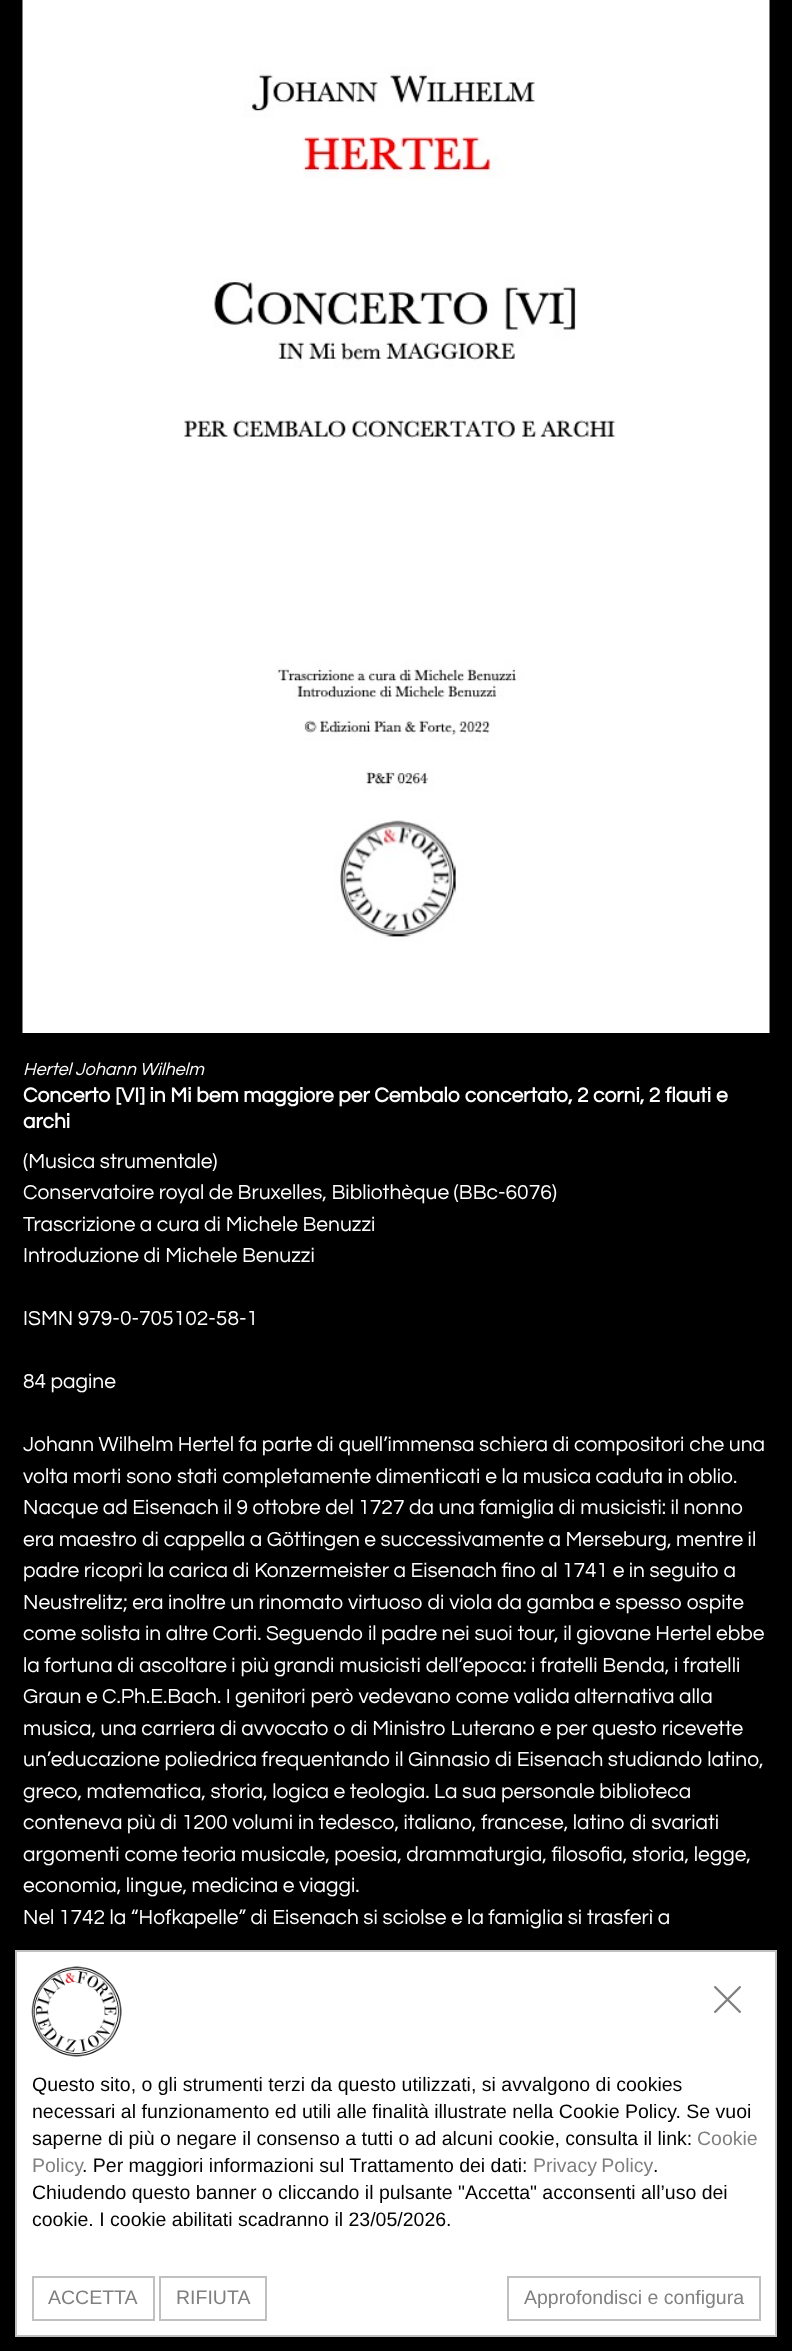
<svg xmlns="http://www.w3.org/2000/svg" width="792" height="2351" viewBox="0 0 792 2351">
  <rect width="100%" height="100%" fill="#000000"/>
  <image x="22" y="0" width="748" height="1033" href="img1.png"/>
  <text x="23" y="1075" font-family="Questrial" font-size="18" font-style="italic" fill="#ffffff">Hertel Johann Wilhelm</text>
  <text x="23" y="1102" font-family="Questrial" font-size="21" font-weight="bold" fill="#ffffff">Concerto [VI] in Mi bem maggiore per Cembalo concertato, 2 corni, 2 flauti e</text>
  <text x="23" y="1128" font-family="Questrial" font-size="21" font-weight="bold" fill="#ffffff">archi</text>
  <text x="23" y="1168" font-family="Questrial" font-size="21" fill="#ffffff">(Musica strumentale)</text>
  <text x="23" y="1199" font-family="Questrial" font-size="21" fill="#ffffff">Conservatoire royal de Bruxelles, Bibliothèque (BBc-6076)</text>
  <text x="23" y="1231" font-family="Questrial" font-size="21" fill="#ffffff">Trascrizione a cura di Michele Benuzzi</text>
  <text x="23" y="1262" font-family="Questrial" font-size="21" fill="#ffffff">Introduzione di Michele Benuzzi</text>
  <text x="23" y="1325" font-family="Questrial" font-size="21" fill="#ffffff">ISMN 979-0-705102-58-1</text>
  <text x="23" y="1388" font-family="Questrial" font-size="21" fill="#ffffff">84 pagine</text>
  <text x="23" y="1451" font-family="Questrial" font-size="21" fill="#ffffff">Johann Wilhelm Hertel fa parte di quell’immensa schiera di compositori che una</text>
  <text x="23" y="1483" font-family="Questrial" font-size="21" fill="#ffffff">volta morti sono stati completamente dimenticati e la musica caduta in oblio.</text>
  <text x="23" y="1514" font-family="Questrial" font-size="21" fill="#ffffff">Nacque ad Eisenach il 9 ottobre del 1727 da una famiglia di musicisti: il nonno</text>
  <text x="23" y="1546" font-family="Questrial" font-size="21" fill="#ffffff">era maestro di cappella a Göttingen e successivamente a Merseburg, mentre il</text>
  <text x="23" y="1577" font-family="Questrial" font-size="21" fill="#ffffff">padre ricoprì la carica di Konzermeister a Eisenach fino al 1741 e in seguito a</text>
  <text x="23" y="1609" font-family="Questrial" font-size="21" fill="#ffffff">Neustrelitz; era inoltre un rinomato virtuoso di viola da gamba e spesso ospite</text>
  <text x="23" y="1640" font-family="Questrial" font-size="21" fill="#ffffff">come solista in altre Corti. Seguendo il padre nei suoi tour, il giovane Hertel ebbe</text>
  <text x="23" y="1672" font-family="Questrial" font-size="21" fill="#ffffff">la fortuna di ascoltare i più grandi musicisti dell’epoca: i fratelli Benda, i fratelli</text>
  <text x="23" y="1703" font-family="Questrial" font-size="21" fill="#ffffff">Graun e C.Ph.E.Bach. I genitori però vedevano come valida alternativa alla</text>
  <text x="23" y="1735" font-family="Questrial" font-size="21" fill="#ffffff">musica, una carriera di avvocato o di Ministro Luterano e per questo ricevette</text>
  <text x="23" y="1766" font-family="Questrial" font-size="21" fill="#ffffff">un’educazione poliedrica frequentando il Ginnasio di Eisenach studiando latino,</text>
  <text x="23" y="1798" font-family="Questrial" font-size="21" fill="#ffffff">greco, matematica, storia, logica e teologia. La sua personale biblioteca</text>
  <text x="23" y="1829" font-family="Questrial" font-size="21" fill="#ffffff">conteneva più di 1200 volumi in tedesco, italiano, francese, latino di svariati</text>
  <text x="23" y="1861" font-family="Questrial" font-size="21" fill="#ffffff">argomenti come teoria musicale, poesia, drammaturgia, filosofia, storia, legge,</text>
  <text x="23" y="1892" font-family="Questrial" font-size="21" fill="#ffffff">economia, lingue, medicina e viaggi.</text>
  <text x="23" y="1924" font-family="Questrial" font-size="21" fill="#ffffff">Nel 1742 la “Hofkapelle” di Eisenach si sciolse e la famiglia si trasferì a</text>
  <rect x="16" y="1951" width="760" height="385" fill="#ffffff" stroke="#c0c0c0" stroke-width="2"/>
  <image x="31" y="1966" width="91" height="91" href="img2.png"/>
  <text x="32" y="2091" font-family="Liberation Sans" font-size="19.5" fill="#000000">Questo sito, o gli strumenti terzi da questo utilizzati, si avvalgono di cookies</text>
  <text x="32" y="2118" font-family="Liberation Sans" font-size="19.5" fill="#000000">necessari al funzionamento ed utili alle finalità illustrate nella Cookie Policy. Se vuoi</text>
  <text x="32" y="2145" font-family="Liberation Sans" font-size="19.5" fill="#000000">saperne di più o negare il consenso a tutti o ad alcuni cookie, consulta il link:</text>
  <text x="697" y="2145" font-family="Liberation Sans" font-size="19.5" fill="#808080">Cookie</text>
  <text x="32" y="2172" font-family="Liberation Sans" font-size="19.5" fill="#808080">Policy</text>
  <text x="82" y="2172" font-family="Liberation Sans" font-size="19.5" fill="#000000">. Per maggiori informazioni sul Trattamento dei dati:</text>
  <text x="533" y="2172" word-spacing="-1" font-family="Liberation Sans" font-size="19.5" fill="#808080">Privacy Policy</text>
  <text x="653" y="2172" font-family="Liberation Sans" font-size="19.5" fill="#000000">.</text>
  <text x="32" y="2199" font-family="Liberation Sans" font-size="19.5" fill="#000000">Chiudendo questo banner o cliccando il pulsante "Accetta" acconsenti all’uso dei</text>
  <text x="32" y="2226" font-family="Liberation Sans" font-size="19.5" fill="#000000">cookie. I cookie abilitati scadranno il 23/05/2026.</text>
  <image x="714" y="1986" width="27" height="27" href="img3.png"/>
  <rect x="33" y="2277" width="121" height="43" fill="none" stroke="#c0c0c0" stroke-width="2"/>
  <text x="48" y="2304" font-family="Liberation Sans" font-size="19.5" fill="#808080">ACCETTA</text>
  <rect x="160" y="2277" width="106" height="43" fill="none" stroke="#c0c0c0" stroke-width="2"/>
  <text x="176" y="2304" font-family="Liberation Sans" font-size="19.5" fill="#808080">RIFIUTA</text>
  <rect x="508" y="2277" width="252" height="43" fill="none" stroke="#c0c0c0" stroke-width="2"/>
  <text x="524" y="2304" font-family="Liberation Sans" font-size="19.5" fill="#808080">Approfondisci e configura</text>
</svg>
